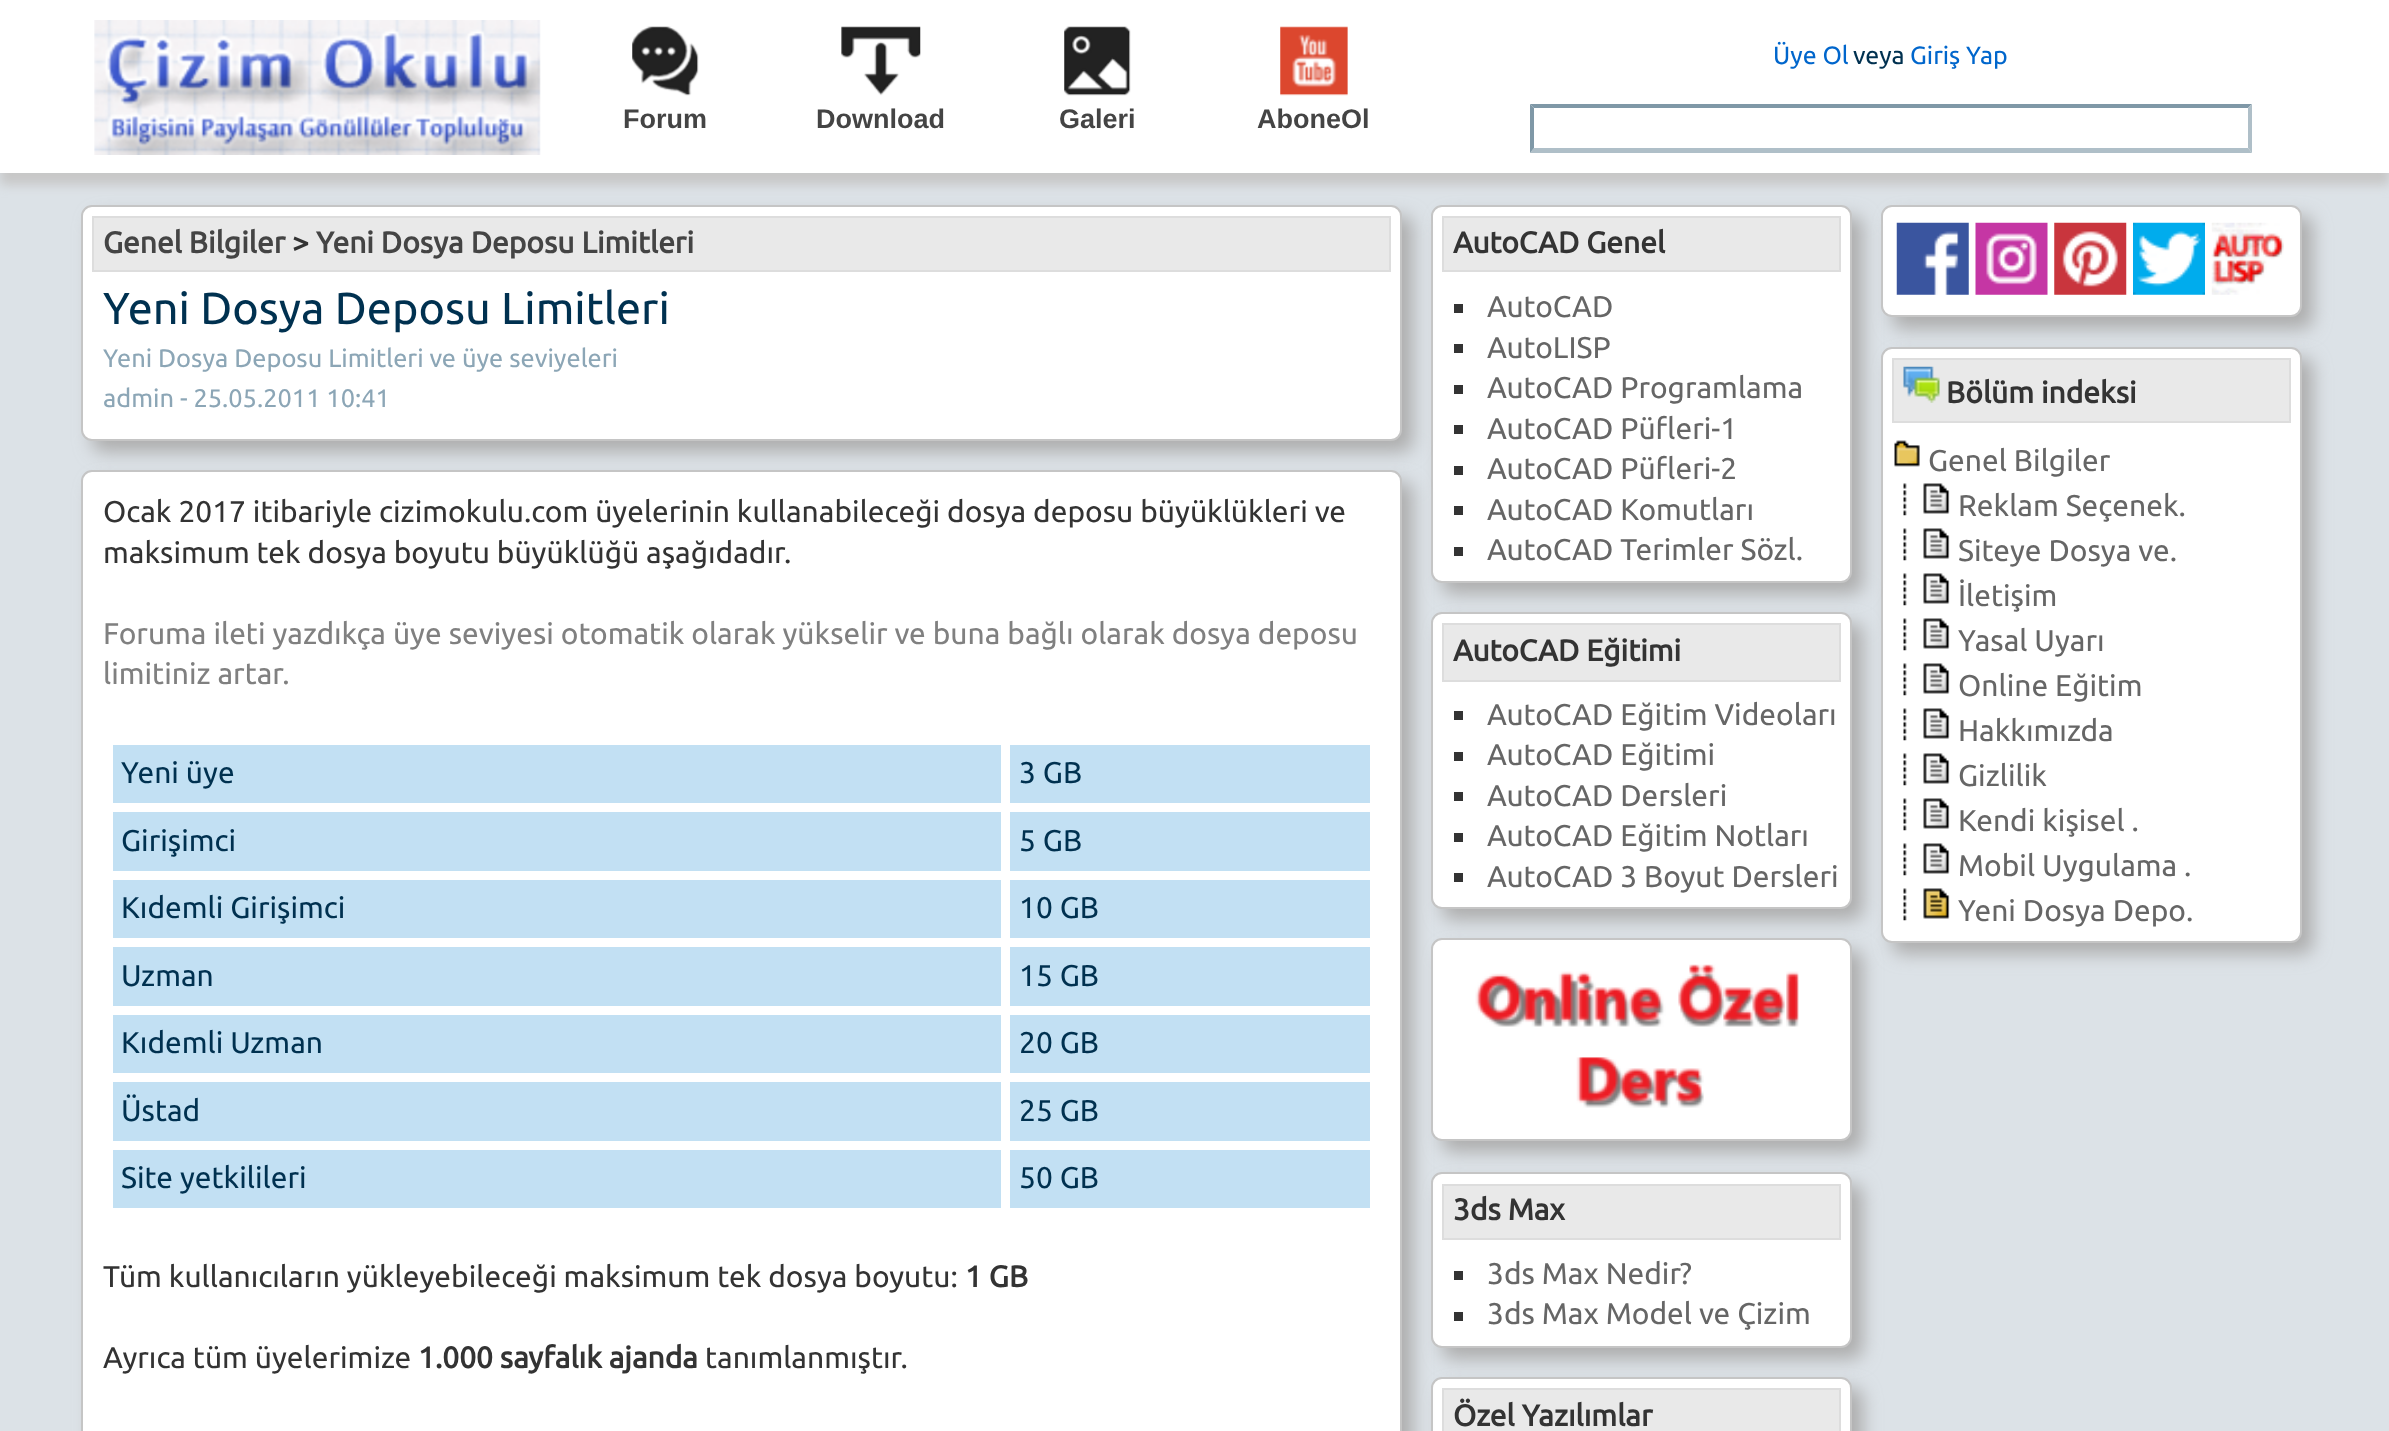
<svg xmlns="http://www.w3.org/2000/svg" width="2389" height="1431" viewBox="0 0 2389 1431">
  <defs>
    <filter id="blur1" x="-50%" y="-200%" width="200%" height="500%"><feGaussianBlur stdDeviation="5.5"/></filter>
    <filter id="blur2" x="-50%" y="-200%" width="200%" height="500%"><feGaussianBlur stdDeviation="9"/></filter>
  </defs>
  <rect width="100%" height="100%" fill="#dce2e7"/>
  <rect x="0" y="11" width="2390" height="174" fill="#c7c7c7" filter="url(#blur1)"/>
  <rect x="0" y="0" width="2389" height="173" fill="#ffffff"/>
  <image x="94" y="20" width="447" height="135" href="img1.png"/>
  <text x="1773" y="64" font-family="Ubuntu" font-size="25" fill="#0066cc">Üye Ol</text>
  <text x="1853" y="64" font-family="Ubuntu" font-size="25" fill="#003150">veya</text>
  <text x="1910" y="64" font-family="Ubuntu" font-size="25" fill="#0066cc">Giriş Yap</text>
  <image x="632" y="26" width="67" height="70" href="img2.png"/>
  <image x="841" y="26" width="80" height="70" href="img3.png"/>
  <image x="1064" y="26" width="67" height="70" href="img4.png"/>
  <image x="1280" y="26" width="68" height="70" href="img5.png"/>
  <text x="623" y="128" font-family="Liberation Sans" font-size="27" font-weight="bold" fill="#444444">Forum</text>
  <text x="816" y="128" font-family="Liberation Sans" font-size="27" font-weight="bold" fill="#444444">Download</text>
  <text x="1059" y="128" font-family="Liberation Sans" font-size="27" font-weight="bold" fill="#444444">Galeri</text>
  <text x="1257" y="128" font-family="Liberation Sans" font-size="27" font-weight="bold" fill="#444444">AboneOl</text>
  <path d="M1530 104H2252L2248 108H1534Z" fill="#7f98a7"/>
  <path d="M2252 104V153L2248 148V108Z" fill="#afbfc8"/>
  <path d="M2252 153H1530L1534 148H2248Z" fill="#afbfc8"/>
  <path d="M1530 153V104L1534 108V148Z" fill="#7f98a7"/>
  <rect x="1892" y="216" width="421" height="113" rx="11" fill="#adadad" filter="url(#blur2)"/>
  <rect x="1882" y="206" width="419" height="110" rx="10" fill="#ffffff" stroke="#c5c5c5" stroke-width="2"/>
  <rect x="1892" y="358" width="421" height="596" rx="11" fill="#adadad" filter="url(#blur2)"/>
  <rect x="1882" y="348" width="419" height="594" rx="10" fill="#ffffff" stroke="#c5c5c5" stroke-width="2"/>
  <rect x="1442" y="216" width="421" height="378" rx="11" fill="#adadad" filter="url(#blur2)"/>
  <rect x="1432" y="206" width="419" height="376" rx="10" fill="#ffffff" stroke="#c5c5c5" stroke-width="2"/>
  <rect x="92" y="216" width="1321" height="236" rx="11" fill="#adadad" filter="url(#blur2)"/>
  <rect x="82" y="206" width="1319" height="234" rx="10" fill="#ffffff" stroke="#c5c5c5" stroke-width="2"/>
  <rect x="93" y="217" width="1297" height="54" fill="#e9e9e9" stroke="#dddddd" stroke-width="2"/>
  <text x="103" y="253" font-family="Ubuntu" font-size="29.95" font-weight="bold" fill="#444444">Genel Bilgiler</text>
  <text x="292" y="253" font-family="Ubuntu" font-size="29.95" font-weight="bold" fill="#333333">&gt;</text>
  <text x="316" y="253" font-family="Ubuntu" font-size="29.95" font-weight="bold" fill="#444444">Yeni Dosya Deposu Limitleri</text>
  <text x="103" y="324" font-family="Ubuntu" font-size="44.9" fill="#003150">Yeni Dosya Deposu Limitleri</text>
  <text x="103" y="367" font-family="Ubuntu" font-size="25.4" fill="#8ca6b6">Yeni Dosya Deposu Limitleri ve üye seviyeleri</text>
  <text x="103" y="407" font-family="Ubuntu" font-size="25.4" fill="#8ca6b6">admin - 25.05.2011 10:41</text>
  <rect x="1442" y="623" width="421" height="297" rx="11" fill="#adadad" filter="url(#blur2)"/>
  <rect x="1432" y="613" width="419" height="295" rx="10" fill="#ffffff" stroke="#c5c5c5" stroke-width="2"/>
  <rect x="1442" y="950" width="421" height="202" rx="11" fill="#adadad" filter="url(#blur2)"/>
  <rect x="1432" y="939" width="419" height="201" rx="10" fill="#ffffff" stroke="#c5c5c5" stroke-width="2"/>
  <rect x="1442" y="1184" width="421" height="175" rx="11" fill="#adadad" filter="url(#blur2)"/>
  <rect x="1432" y="1173" width="419" height="174" rx="10" fill="#ffffff" stroke="#c5c5c5" stroke-width="2"/>
  <rect x="1442" y="1388" width="421" height="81" rx="11" fill="#adadad" filter="url(#blur2)"/>
  <rect x="1432" y="1378" width="419" height="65" rx="10" fill="#ffffff" stroke="#c5c5c5" stroke-width="2"/>
  <rect x="92" y="482" width="1321" height="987" rx="11" fill="#adadad" filter="url(#blur2)"/>
  <rect x="82" y="471" width="1319" height="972" rx="10" fill="#ffffff" stroke="#c5c5c5" stroke-width="2"/>
  <text x="103" y="522" font-family="Ubuntu" font-size="29.95" fill="#333333">Ocak 2017 itibariyle cizimokulu.com üyelerinin kullanabileceği dosya deposu büyüklükleri ve</text>
  <text x="103" y="563" font-family="Ubuntu" font-size="29.95" fill="#333333">maksimum tek dosya boyutu büyüklüğü aşağıdadır.</text>
  <text x="103" y="644" font-family="Ubuntu" font-size="29.95" fill="#808080">Foruma ileti yazdıkça üye seviyesi otomatik olarak yükselir ve buna bağlı olarak dosya deposu</text>
  <text x="103" y="684" font-family="Ubuntu" font-size="29.95" fill="#808080">limitiniz artar.</text>
  <rect x="113" y="745" width="888" height="58" fill="#c2e0f3"/>
  <text x="121" y="783" font-family="Ubuntu" font-size="29.95" fill="#003150">Yeni üye</text>
  <rect x="1010" y="745" width="360" height="58" fill="#c2e0f3"/>
  <text x="1019" y="783" font-family="Ubuntu" font-size="29.95" fill="#003150">3 GB</text>
  <rect x="113" y="812" width="888" height="59" fill="#c2e0f3"/>
  <text x="121" y="851" font-family="Ubuntu" font-size="29.95" fill="#003150">Girişimci</text>
  <rect x="1010" y="812" width="360" height="59" fill="#c2e0f3"/>
  <text x="1019" y="851" font-family="Ubuntu" font-size="29.95" fill="#003150">5 GB</text>
  <rect x="113" y="880" width="888" height="58" fill="#c2e0f3"/>
  <text x="121" y="918" font-family="Ubuntu" font-size="29.95" fill="#003150">Kıdemli Girişimci</text>
  <rect x="1010" y="880" width="360" height="58" fill="#c2e0f3"/>
  <text x="1019" y="918" font-family="Ubuntu" font-size="29.95" fill="#003150">10 GB</text>
  <rect x="113" y="947" width="888" height="59" fill="#c2e0f3"/>
  <text x="121" y="986" font-family="Ubuntu" font-size="29.95" fill="#003150">Uzman</text>
  <rect x="1010" y="947" width="360" height="59" fill="#c2e0f3"/>
  <text x="1019" y="986" font-family="Ubuntu" font-size="29.95" fill="#003150">15 GB</text>
  <rect x="113" y="1015" width="888" height="58" fill="#c2e0f3"/>
  <text x="121" y="1053" font-family="Ubuntu" font-size="29.95" fill="#003150">Kıdemli Uzman</text>
  <rect x="1010" y="1015" width="360" height="58" fill="#c2e0f3"/>
  <text x="1019" y="1053" font-family="Ubuntu" font-size="29.95" fill="#003150">20 GB</text>
  <rect x="113" y="1082" width="888" height="59" fill="#c2e0f3"/>
  <text x="121" y="1121" font-family="Ubuntu" font-size="29.95" fill="#003150">Üstad</text>
  <rect x="1010" y="1082" width="360" height="59" fill="#c2e0f3"/>
  <text x="1019" y="1121" font-family="Ubuntu" font-size="29.95" fill="#003150">25 GB</text>
  <rect x="113" y="1150" width="888" height="58" fill="#c2e0f3"/>
  <text x="121" y="1188" font-family="Ubuntu" font-size="29.95" fill="#003150">Site yetkilileri</text>
  <rect x="1010" y="1150" width="360" height="58" fill="#c2e0f3"/>
  <text x="1019" y="1188" font-family="Ubuntu" font-size="29.95" fill="#003150">50 GB</text>
  <text x="103" y="1287" font-family="Ubuntu" font-size="29.95" fill="#333333">Tüm kullanıcıların yükleyebileceği maksimum tek dosya boyutu:</text>
  <text x="965" y="1287" font-family="Ubuntu" font-size="29.95" font-weight="bold" fill="#333333">1 GB</text>
  <text x="103" y="1368" font-family="Ubuntu" font-size="29.95" fill="#333333">Ayrıca tüm üyelerimize</text>
  <text x="418" y="1368" font-family="Ubuntu" font-size="29.95" font-weight="bold" fill="#333333">1.000 sayfalık ajanda</text>
  <text x="705" y="1368" font-family="Ubuntu" font-size="29.95" fill="#333333">tanımlanmıştır.</text>
  <rect x="1443" y="217" width="397" height="54" fill="#e9e9e9" stroke="#dddddd" stroke-width="2"/>
  <text x="1453" y="253" font-family="Ubuntu" font-size="29.95" font-weight="bold" fill="#333333">AutoCAD Genel</text>
  <rect x="1454" y="304" width="9" height="9" fill="#333333"/>
  <text x="1487" y="317" font-family="Ubuntu" font-size="29.95" fill="#666666">AutoCAD</text>
  <rect x="1454" y="344" width="9" height="9" fill="#333333"/>
  <text x="1487" y="358" font-family="Ubuntu" font-size="29.95" fill="#666666">AutoLISP</text>
  <rect x="1454" y="385" width="9" height="9" fill="#333333"/>
  <text x="1487" y="398" font-family="Ubuntu" font-size="29.95" fill="#666666">AutoCAD Programlama</text>
  <rect x="1454" y="425" width="9" height="9" fill="#333333"/>
  <text x="1487" y="439" font-family="Ubuntu" font-size="29.95" fill="#666666">AutoCAD Püfleri-1</text>
  <rect x="1454" y="466" width="9" height="9" fill="#333333"/>
  <text x="1487" y="479" font-family="Ubuntu" font-size="29.95" fill="#666666">AutoCAD Püfleri-2</text>
  <rect x="1454" y="506" width="9" height="9" fill="#333333"/>
  <text x="1487" y="520" font-family="Ubuntu" font-size="29.95" fill="#666666">AutoCAD Komutları</text>
  <rect x="1454" y="547" width="9" height="9" fill="#333333"/>
  <text x="1487" y="560" font-family="Ubuntu" font-size="29.95" fill="#666666">AutoCAD Terimler Sözl.</text>
  <rect x="1443" y="624" width="397" height="57" fill="#e9e9e9" stroke="#dddddd" stroke-width="2"/>
  <text x="1453" y="661" font-family="Ubuntu" font-size="29.95" font-weight="bold" fill="#333333">AutoCAD Eğitimi</text>
  <rect x="1454" y="711" width="9" height="9" fill="#333333"/>
  <text x="1487" y="725" font-family="Ubuntu" font-size="29.95" fill="#666666">AutoCAD Eğitim Videoları</text>
  <rect x="1454" y="752" width="9" height="9" fill="#333333"/>
  <text x="1487" y="765" font-family="Ubuntu" font-size="29.95" fill="#666666">AutoCAD Eğitimi</text>
  <rect x="1454" y="792" width="9" height="9" fill="#333333"/>
  <text x="1487" y="806" font-family="Ubuntu" font-size="29.95" fill="#666666">AutoCAD Dersleri</text>
  <rect x="1454" y="833" width="9" height="9" fill="#333333"/>
  <text x="1487" y="846" font-family="Ubuntu" font-size="29.95" fill="#666666">AutoCAD Eğitim Notları</text>
  <rect x="1454" y="873" width="9" height="9" fill="#333333"/>
  <text x="1487" y="887" font-family="Ubuntu" font-size="29.95" fill="#666666">AutoCAD 3 Boyut Dersleri</text>
  <image x="1475" y="964" width="324" height="144" href="img6.png"/>
  <rect x="1443" y="1185" width="397" height="54" fill="#e9e9e9" stroke="#dddddd" stroke-width="2"/>
  <text x="1453" y="1220" font-family="Ubuntu" font-size="29.95" font-weight="bold" fill="#333333">3ds Max</text>
  <rect x="1454" y="1271" width="9" height="9" fill="#333333"/>
  <text x="1487" y="1284" font-family="Ubuntu" font-size="29.95" fill="#666666">3ds Max Nedir?</text>
  <rect x="1454" y="1312" width="9" height="9" fill="#333333"/>
  <text x="1487" y="1324" font-family="Ubuntu" font-size="29.95" fill="#666666">3ds Max Model ve Çizim</text>
  <rect x="1443" y="1389" width="397" height="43" fill="#e9e9e9" stroke="#dddddd" stroke-width="2"/>
  <text x="1453" y="1426" font-family="Ubuntu" font-size="29.95" font-weight="bold" fill="#333333">Özel Yazılımlar</text>
  <image x="1896" y="222" width="73" height="73" href="img7.png"/>
  <image x="1975" y="222" width="73" height="73" href="img8.png"/>
  <image x="2054" y="222" width="73" height="73" href="img9.png"/>
  <image x="2133" y="222" width="72" height="73" href="img10.png"/>
  <image x="2211" y="222" width="73" height="73" href="img11.png"/>
  <rect x="1893" y="359" width="397" height="63" fill="#e9e9e9" stroke="#dddddd" stroke-width="2"/>
  <image x="1903" y="366" width="37" height="37" href="img12.png"/>
  <text x="1946" y="403" font-family="Ubuntu" font-size="29.95" font-weight="bold" fill="#333333">Bölüm indeksi</text>
  <image x="1894" y="440" width="26" height="27" href="img13.png"/>
  <text x="1928" y="471" font-family="Ubuntu" font-size="29.95" fill="#666666">Genel Bilgiler</text>
  <image x="1903" y="483" width="4" height="33" href="img14.png"/>
  <image x="1923" y="483" width="27" height="31" href="img15.png"/>
  <text x="1958" y="516" font-family="Ubuntu" font-size="29.95" fill="#666666">Reklam Seçenek.</text>
  <image x="1903" y="528" width="4" height="33" href="img14.png"/>
  <image x="1923" y="528" width="27" height="31" href="img15.png"/>
  <text x="1958" y="561" font-family="Ubuntu" font-size="29.95" fill="#666666">Siteye Dosya ve.</text>
  <image x="1903" y="573" width="4" height="33" href="img16.png"/>
  <image x="1923" y="573" width="27" height="31" href="img17.png"/>
  <text x="1958" y="606" font-family="Ubuntu" font-size="29.95" fill="#666666">İletişim</text>
  <image x="1903" y="618" width="4" height="33" href="img14.png"/>
  <image x="1923" y="618" width="27" height="31" href="img15.png"/>
  <text x="1958" y="651" font-family="Ubuntu" font-size="29.95" fill="#666666">Yasal Uyarı</text>
  <image x="1903" y="663" width="4" height="33" href="img14.png"/>
  <image x="1923" y="663" width="27" height="31" href="img15.png"/>
  <text x="1958" y="696" font-family="Ubuntu" font-size="29.95" fill="#666666">Online Eğitim</text>
  <image x="1903" y="708" width="4" height="33" href="img14.png"/>
  <image x="1923" y="708" width="27" height="31" href="img15.png"/>
  <text x="1958" y="741" font-family="Ubuntu" font-size="29.95" fill="#666666">Hakkımızda</text>
  <image x="1903" y="753" width="4" height="33" href="img14.png"/>
  <image x="1923" y="753" width="27" height="31" href="img15.png"/>
  <text x="1958" y="786" font-family="Ubuntu" font-size="29.95" fill="#666666">Gizlilik</text>
  <image x="1903" y="798" width="4" height="33" href="img14.png"/>
  <image x="1923" y="798" width="27" height="31" href="img15.png"/>
  <text x="1958" y="831" font-family="Ubuntu" font-size="29.95" fill="#666666">Kendi kişisel .</text>
  <image x="1903" y="843" width="4" height="33" href="img14.png"/>
  <image x="1923" y="843" width="27" height="31" href="img15.png"/>
  <text x="1958" y="876" font-family="Ubuntu" font-size="29.95" fill="#666666">Mobil Uygulama .</text>
  <image x="1903" y="888" width="4" height="33" href="img14.png"/>
  <image x="1923" y="888" width="27" height="31" href="img18.png"/>
  <text x="1958" y="921" font-family="Ubuntu" font-size="29.95" fill="#666666">Yeni Dosya Depo.</text>
</svg>
